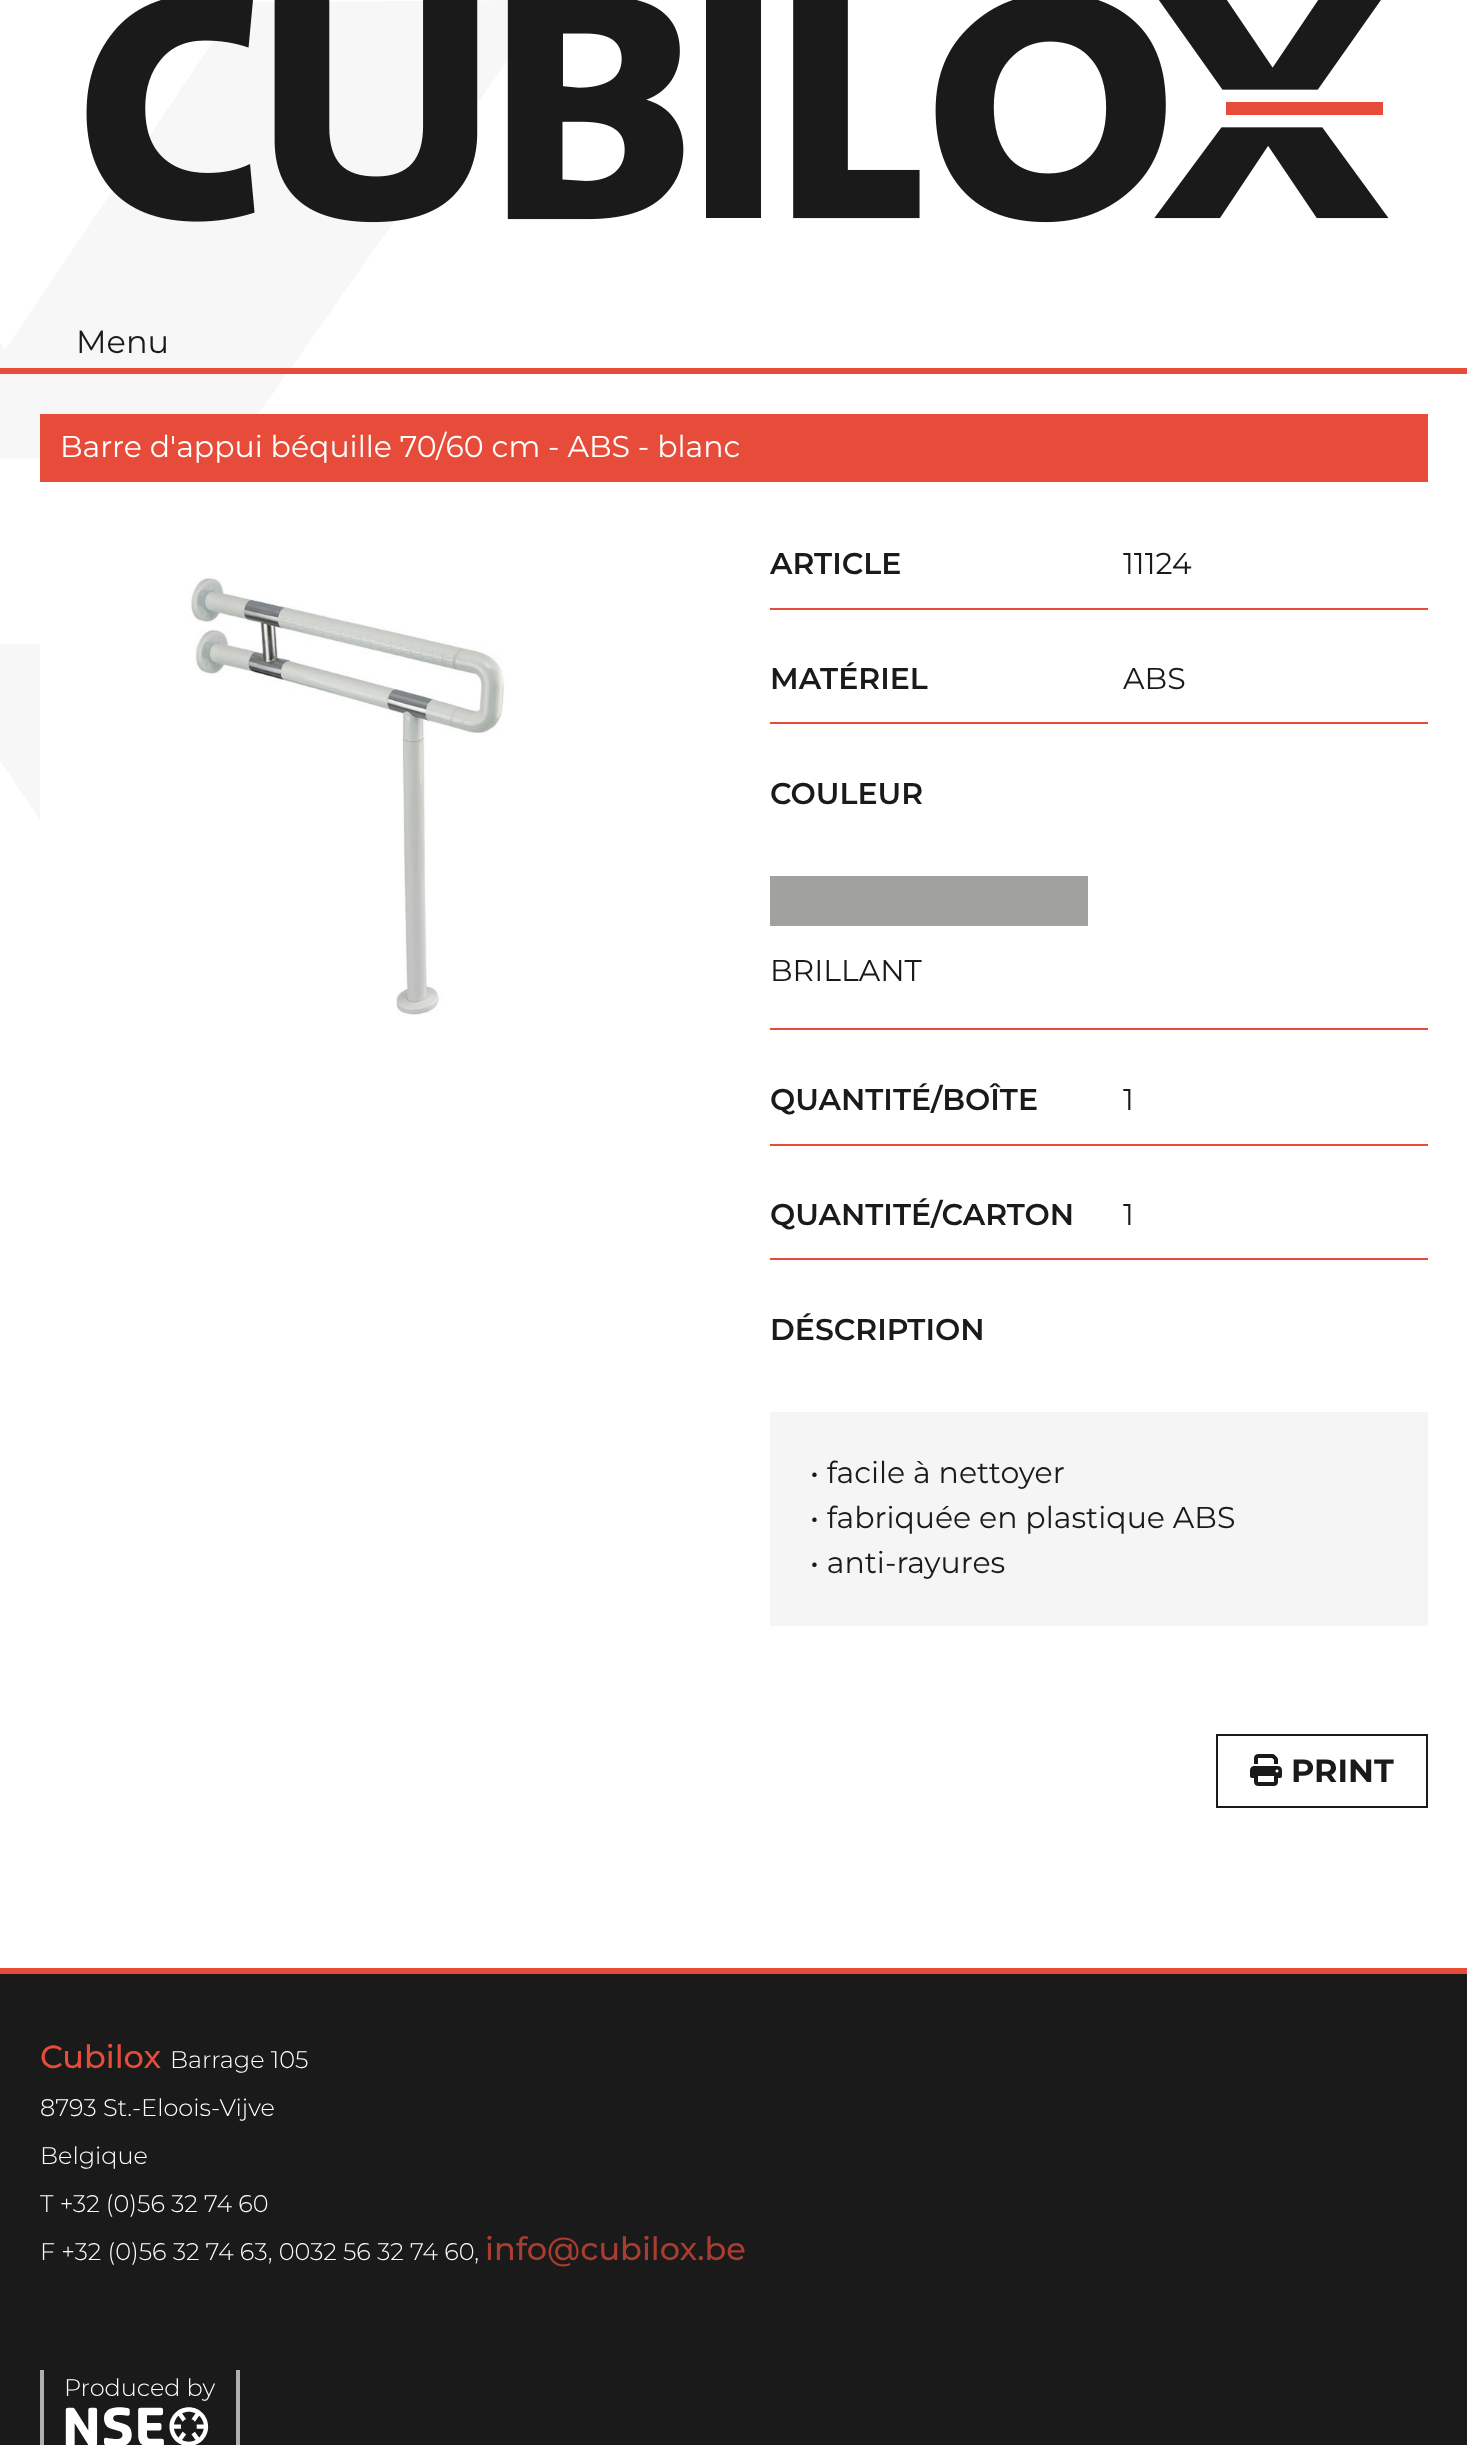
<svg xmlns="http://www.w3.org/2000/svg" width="1467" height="2445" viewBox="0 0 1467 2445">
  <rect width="100%" height="100%" fill="#ffffff"/>
  <image x="0" y="0" width="508" height="368" href="img1.png"/>
  <image x="86" y="0" width="1303" height="223" href="img2.png"/>
  <rect x="0" y="368" width="1467" height="6" fill="#e64c39"/>
  <text x="76" y="353" font-family="Montserrat" font-size="32" fill="#1a1a1a">Menu</text>
  <image x="0" y="374" width="286" height="445" href="img3.png"/>
  <rect x="40" y="414" width="1388" height="68" fill="#e64c39"/>
  <text x="60" y="457" font-family="Montserrat" font-size="30" fill="#ffffff">Barre d'appui béquille 70/60 cm - ABS - blanc</text>
  <image x="40" y="577" width="534" height="513" href="img4.png"/>
  <rect x="770" y="608" width="658" height="2" fill="#e64c39"/>
  <text x="770" y="574" font-family="Montserrat" font-size="30" font-weight="600" fill="#1a1a1a">ARTICLE</text>
  <text x="1123" y="574" font-family="Montserrat" font-size="30" fill="#1a1a1a">11124</text>
  <rect x="770" y="722" width="658" height="2" fill="#e64c39"/>
  <text x="770" y="689" font-family="Montserrat" font-size="30" font-weight="600" fill="#1a1a1a">MATÉRIEL</text>
  <text x="1123" y="689" font-family="Montserrat" font-size="30" fill="#1a1a1a">ABS</text>
  <rect x="770" y="1028" width="658" height="2" fill="#e64c39"/>
  <text x="770" y="804" font-family="Montserrat" font-size="30" font-weight="600" fill="#1a1a1a">COULEUR</text>
  <rect x="770" y="876" width="318" height="50" fill="#a1a1a0"/>
  <text x="770" y="981" font-family="Montserrat" font-size="30" fill="#1a1a1a">BRILLANT</text>
  <rect x="770" y="1144" width="658" height="2" fill="#e64c39"/>
  <text x="770" y="1110" font-family="Montserrat" font-size="30" font-weight="600" fill="#1a1a1a">QUANTITÉ/BOÎTE</text>
  <text x="1123" y="1110" font-family="Montserrat" font-size="30" fill="#1a1a1a">1</text>
  <rect x="770" y="1258" width="658" height="2" fill="#e64c39"/>
  <text x="770" y="1225" font-family="Montserrat" font-size="30" font-weight="600" fill="#1a1a1a">QUANTITÉ/CARTON</text>
  <text x="1123" y="1225" font-family="Montserrat" font-size="30" fill="#1a1a1a">1</text>
  <text x="770" y="1340" font-family="Montserrat" font-size="30" font-weight="600" fill="#1a1a1a">DÉSCRIPTION</text>
  <rect x="770" y="1412" width="658" height="214" fill="#f5f5f5"/>
  <text x="810" y="1483" font-family="Montserrat" font-size="30" fill="#1a1a1a">• facile à nettoyer</text>
  <text x="810" y="1528" font-family="Montserrat" font-size="30" fill="#1a1a1a">• fabriquée en plastique ABS</text>
  <text x="810" y="1573" font-family="Montserrat" font-size="30" fill="#1a1a1a">• anti-rayures</text>
  <rect x="1217" y="1735" width="210" height="72" fill="none" stroke="#1a1a1a" stroke-width="2"/>
  <image x="1250" y="1754" width="32" height="32" href="img5.png"/>
  <text x="1291" y="1782" font-family="Montserrat" font-size="32" font-weight="bold" fill="#1a1a1a">PRINT</text>
  <rect x="0" y="1974" width="1467" height="471" fill="#1a1a1a"/>
  <rect x="0" y="1968" width="1467" height="6" fill="#e64c39"/>
  <text x="40" y="2068" font-family="Montserrat" font-size="32" font-weight="500" fill="#e64c39">Cubilox</text>
  <text x="170" y="2068" font-family="Montserrat" font-size="24" font-weight="300" fill="#ffffff">Barrage 105</text>
  <text x="40" y="2116" font-family="Montserrat" font-size="24" font-weight="300" fill="#ffffff">8793 St.-Eloois-Vijve</text>
  <text x="40" y="2164" font-family="Montserrat" font-size="24" font-weight="300" fill="#ffffff">Belgique</text>
  <text x="40" y="2212" font-family="Montserrat" font-size="24" font-weight="300" fill="#ffffff">T +32 (0)56 32 74 60</text>
  <text x="40" y="2260" font-family="Montserrat" font-size="24" font-weight="300" fill="#ffffff">F +32 (0)56 32 74 63, 0032 56 32 74 60,</text>
  <text x="485" y="2260" font-family="Montserrat" font-size="32" font-weight="500" fill="#a93d30">info@cubilox.be</text>
  <rect x="236" y="2370" width="4" height="75" fill="#afafaf"/>
  <rect x="40" y="2370" width="4" height="75" fill="#afafaf"/>
  <text x="64" y="2396" font-family="Montserrat" font-size="24" font-weight="300" fill="#ffffff">Produced by</text>
  <image x="65" y="2407" width="144" height="38" href="img6.png"/>
</svg>
